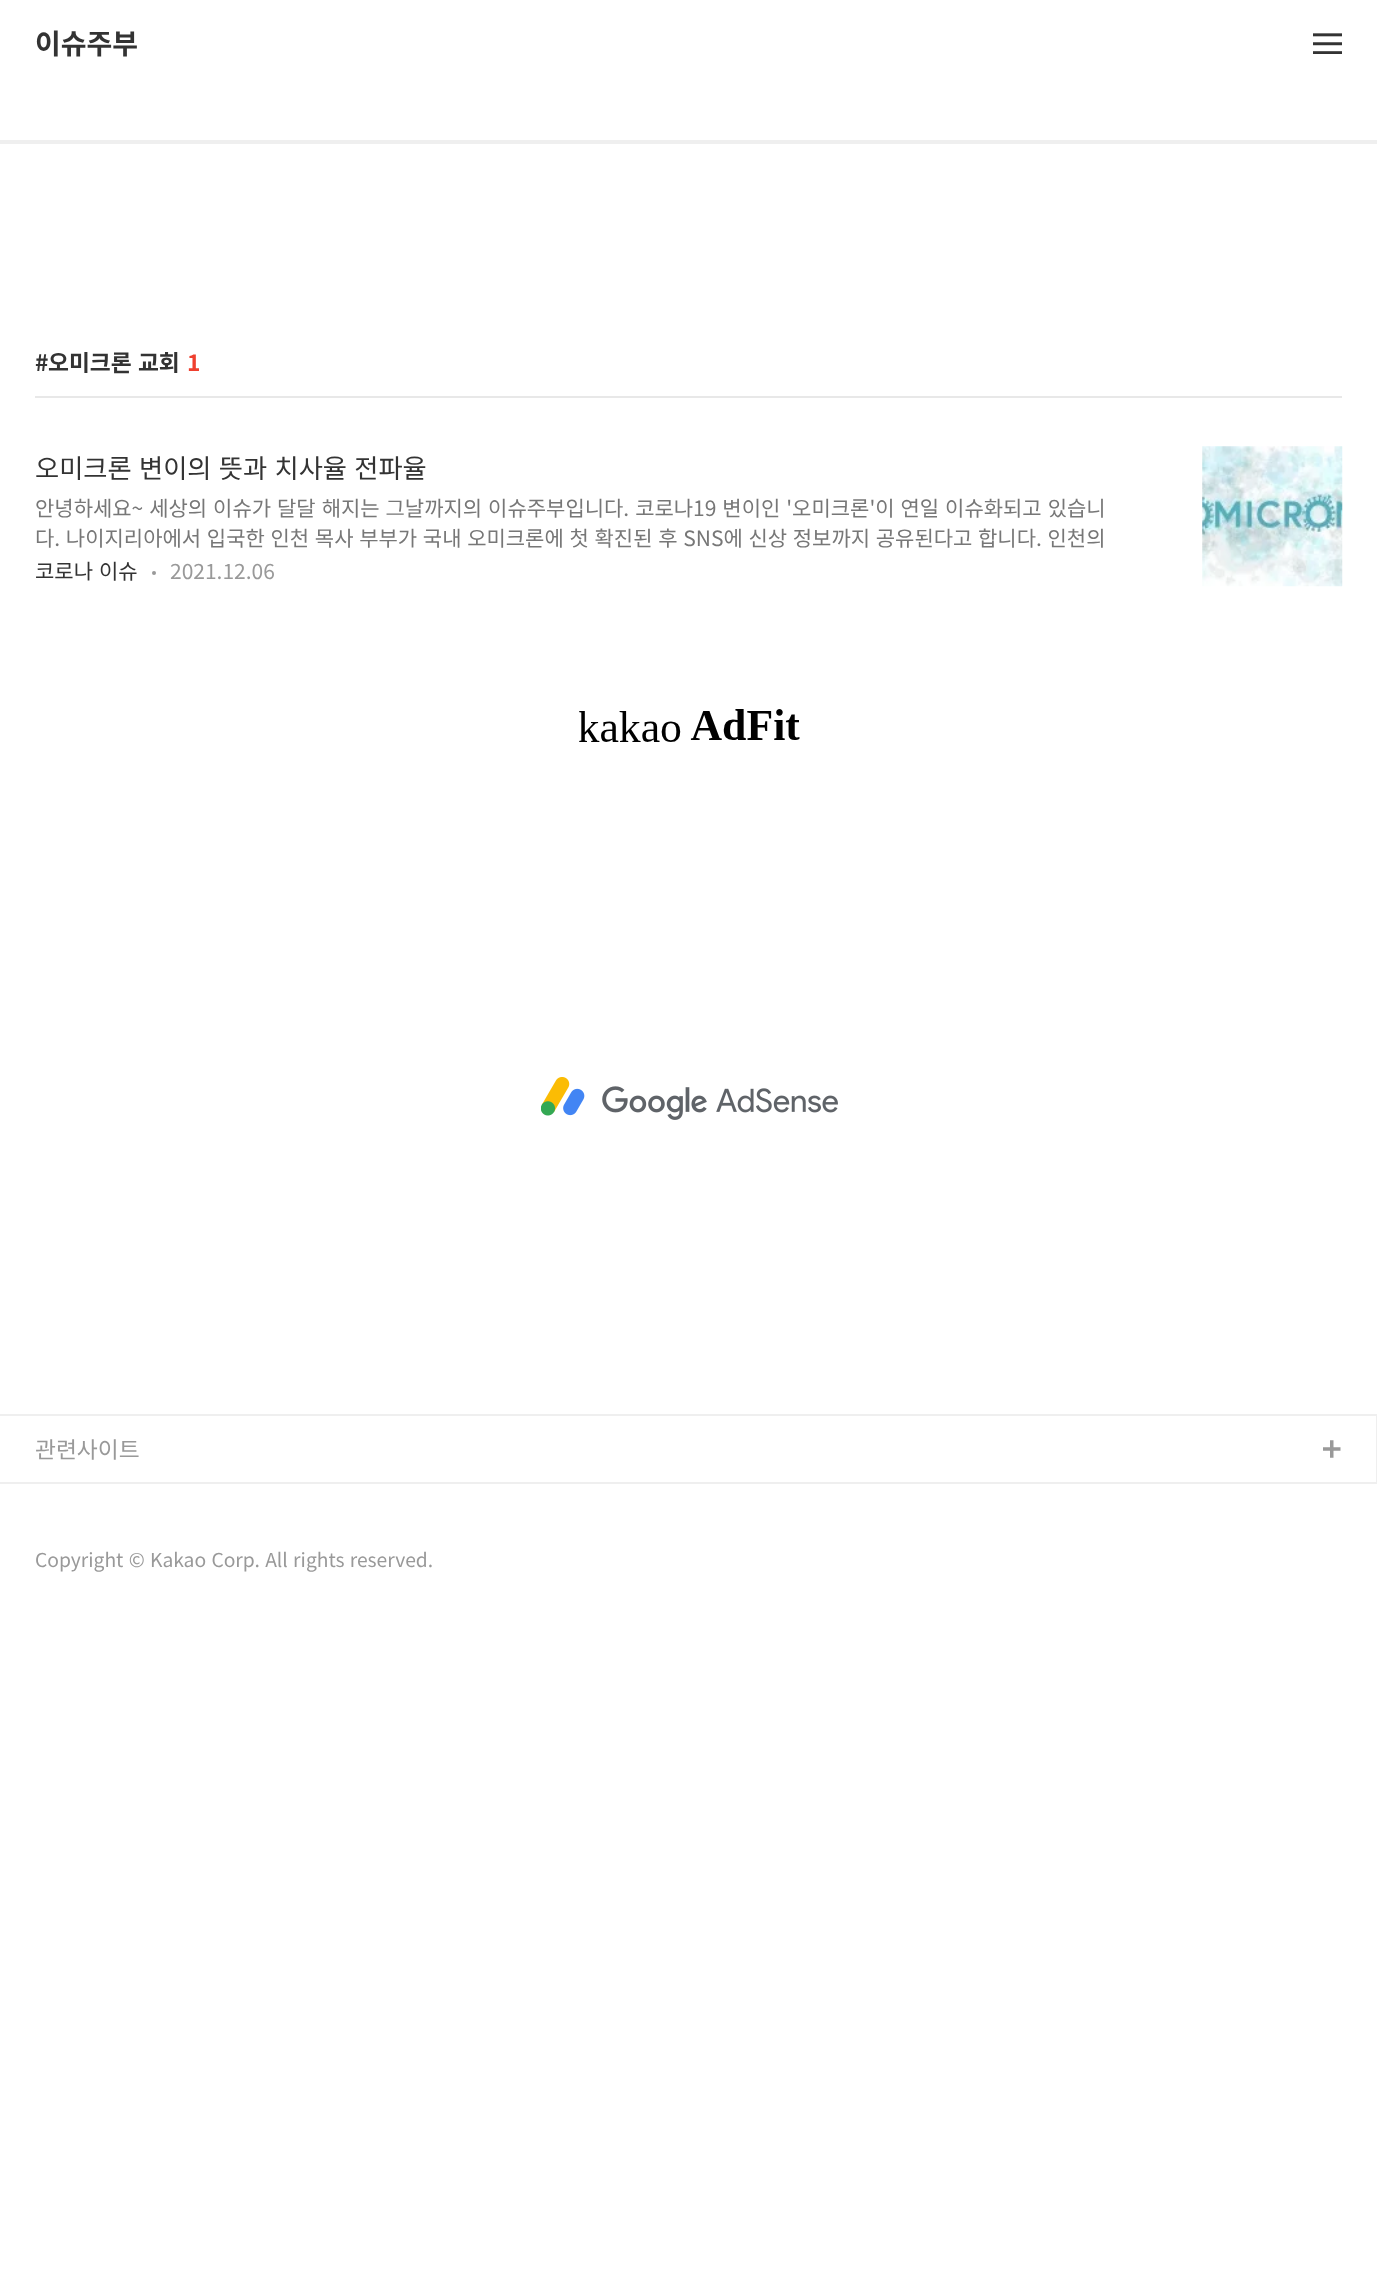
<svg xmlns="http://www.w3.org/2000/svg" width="1377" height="2284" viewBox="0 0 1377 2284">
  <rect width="100%" height="100%" fill="#ffffff"/>
  <rect x="0" y="140" width="1377" height="4" fill="#efefef"/>
  <text x="35" y="54" font-family="Noto Sans KR" font-size="28" font-weight="bold" fill="#333333">이슈주부</text>
  <image x="1313" y="33" width="29" height="21" href="img1.png"/>
  <rect x="35" y="396" width="1307" height="2" fill="#e8e8e8"/>
  <text x="35" y="371" font-family="Noto Sans KR" font-size="22.75" font-weight="bold" fill="#333333">#</text>
  <text x="48" y="371" word-spacing="1" font-family="Noto Sans KR" font-size="22.75" font-weight="bold" fill="#333333">오미크론 교회</text>
  <text x="187" y="371" font-family="Noto Sans KR" font-size="22.75" font-weight="bold" fill="#ef402f">1</text>
  <text x="35" y="478" word-spacing="1.5" font-family="Noto Sans KR" font-size="26.25" fill="#333333">오미크론 변이의 뜻과 치사율 전파율</text>
  <text x="35" y="516" word-spacing="1.25" font-family="Noto Sans KR" font-size="21" fill="#777777">안녕하세요~ 세상의 이슈가 달달 해지는 그날까지의 이슈주부입니다. 코로나19 변이인 '오미크론'이 연일 이슈화되고 있습니</text>
  <text x="35" y="546" word-spacing="1" font-family="Noto Sans KR" font-size="21" fill="#777777">다. 나이지리아에서 입국한 인천 목사 부부가 국내 오미크론에 첫 확진된 후 SNS에 신상 정보까지 공유된다고 합니다. 인천의</text>
  <text x="35" y="579" word-spacing="1.25" font-family="Noto Sans KR" font-size="21" fill="#333333">코로나 이슈</text>
  <circle cx="154" cy="573" r="2" fill="#999999"/>
  <text x="170" y="579" font-family="Noto Sans KR" font-size="21" fill="#999999">2021.12.06</text>
  <image x="1202" y="446" width="141" height="141" href="img2.png"/>
  <image x="579" y="709" width="221" height="33" href="img3.png"/>
  <image x="541" y="1077" width="297" height="43" href="img4.png"/>
  <rect x="0" y="1414" width="1377" height="2" fill="#efefef"/>
  <image x="1323" y="1440" width="18" height="18" href="img5.png"/>
  <rect x="1376" y="1414" width="1" height="70" fill="#efefef"/>
  <rect x="0" y="1482" width="1377" height="2" fill="#efefef"/>
  <text x="35" y="1458" font-family="Noto Sans KR" font-size="22.75" fill="#999999">관련사이트</text>
  <text x="35" y="1567" word-spacing="1" font-family="Noto Sans KR" font-size="19.25" fill="#999999">Copyright © Kakao Corp. All rights reserved.</text>
</svg>
